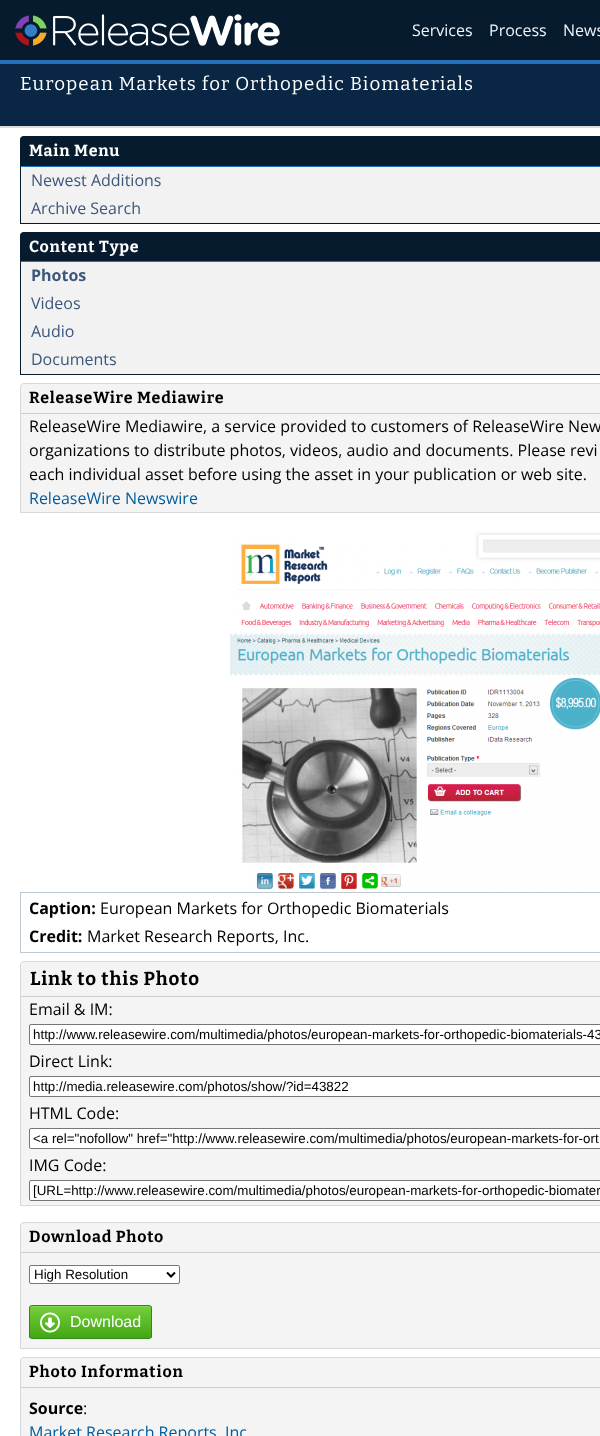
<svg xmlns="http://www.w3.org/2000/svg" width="600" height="1436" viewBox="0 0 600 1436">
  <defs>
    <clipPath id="clip1"><rect x="29" y="1305" width="123" height="34" rx="3"/></clipPath>
    <linearGradient id="g1" gradientUnits="userSpaceOnUse" x1="91" y1="1306" x2="91" y2="1338"><stop offset="0" stop-color="#8de579"/><stop offset="0.03" stop-color="#74ce39"/><stop offset="1" stop-color="#42a715"/></linearGradient>
  </defs>
  <rect width="100%" height="100%" fill="#ffffff"/>
  <rect x="0" y="0" width="600" height="60" fill="#061b2d"/>
  <rect x="0" y="60" width="600" height="4" fill="#266fbc"/>
  <image x="15" y="14" width="265" height="32" href="img1.png"/>
  <text x="412" y="36" font-family="Open Sans" font-size="16" fill="#eff5fb">Services</text>
  <text x="489" y="36" font-family="Open Sans" font-size="16" fill="#eff5fb">Process</text>
  <text x="563" y="36" font-family="Open Sans" font-size="16" fill="#eff5fb">News</text>
  <rect x="0" y="64" width="600" height="62" fill="#092744"/>
  <rect x="0" y="126" width="600" height="2" fill="#dadde0"/>
  <text x="20" y="90" font-family="Bitter" font-size="18.75" letter-spacing="1.1" fill="#ffffff">European Markets for Orthopedic Biomaterials</text>
  <path d="M24 136H600C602 136 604 138 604 140V167H20V140C20 138 22 136 24 136Z" fill="#061b2d"/>
  <path d="M24 136L21 137L22 138L24 137H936L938 138L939 137L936 136Z" fill="#061b2d"/>
  <path d="M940 167L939 166H21L20 167Z" fill="#266fbc"/>
  <path d="M20 167L21 166V140C21 139 21 138 22 138L21 137C20.5 138 20 139 20 140Z" fill="#061b2d"/>
  <text x="29" y="156" font-family="Bitter" font-size="16" font-weight="bold" letter-spacing="0.8" fill="#ffffff">Main Menu</text>
  <rect x="21" y="167" width="579" height="56" fill="#f2f2f2"/>
  <rect x="20" y="223" width="580" height="1" fill="#061b2d"/>
  <rect x="20" y="167" width="1" height="57" fill="#061b2d"/>
  <text x="31" y="186" font-family="Open Sans" font-size="16" fill="#3d567b">Newest Additions</text>
  <text x="31" y="214" font-family="Open Sans" font-size="16" fill="#3d567b">Archive Search</text>
  <path d="M24 232H600C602 232 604 234 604 236V262H20V236C20 234 22 232 24 232Z" fill="#061b2d"/>
  <path d="M24 232L21 233L22 234L24 233H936L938 234L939 233L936 232Z" fill="#061b2d"/>
  <path d="M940 262L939 261H21L20 262Z" fill="#266fbc"/>
  <path d="M20 262L21 261V236C21 235 21 234 22 234L21 233C20.5 234 20 235 20 236Z" fill="#061b2d"/>
  <text x="29" y="252" font-family="Bitter" font-size="16" font-weight="bold" letter-spacing="0.8" fill="#ffffff">Content Type</text>
  <rect x="21" y="262" width="579" height="112" fill="#f2f2f2"/>
  <rect x="20" y="374" width="580" height="1" fill="#061b2d"/>
  <rect x="20" y="262" width="1" height="113" fill="#061b2d"/>
  <text x="31" y="281" font-family="Open Sans" font-size="16" font-weight="bold" fill="#3d567b">Photos</text>
  <text x="31" y="309" font-family="Open Sans" font-size="16" fill="#3d567b">Videos</text>
  <text x="31" y="337" font-family="Open Sans" font-size="16" fill="#3d567b">Audio</text>
  <text x="31" y="365" font-family="Open Sans" font-size="16" fill="#3d567b">Documents</text>
  <path d="M24 383.5H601C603 383.5 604.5 385 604.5 387V512.5H20.5V387C20.5 385 22 383.5 24 383.5Z" fill="#f4f4f4" stroke="#d6d8da"/>
  <rect x="21" y="413" width="579" height="1" fill="#cccccc"/>
  <text x="29" y="403" font-family="Bitter" font-size="16" font-weight="bold" letter-spacing="0.8" fill="#000000">ReleaseWire Mediawire</text>
  <text x="29" y="432" font-family="Open Sans" font-size="16" fill="#000000">ReleaseWire Mediawire, a service provided to customers of ReleaseWire New</text>
  <text x="29" y="456" font-family="Open Sans" font-size="16" fill="#000000">organizations to distribute photos, videos, audio and documents. Please revi</text>
  <text x="29" y="480" font-family="Open Sans" font-size="16" fill="#000000">each individual asset before using the asset in your publication or web site.</text>
  <text x="29" y="504" font-family="Open Sans" font-size="16" fill="#005c9c">ReleaseWire Newswire</text>
  <image x="230" y="532" width="370" height="358" href="img2.png"/>
  <rect x="20.5" y="892.5" width="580" height="60" fill="none" stroke="#bdc8d1"/>
  <text x="29" y="914" font-family="Open Sans" font-size="16" font-weight="bold" fill="#000000">Caption:</text>
  <text x="100" y="914" font-family="Open Sans" font-size="16" fill="#000000">European Markets for Orthopedic Biomaterials</text>
  <text x="29" y="942" font-family="Open Sans" font-size="16" font-weight="bold" fill="#000000">Credit:</text>
  <text x="87" y="942" font-family="Open Sans" font-size="16" fill="#000000">Market Research Reports, Inc.</text>
  <path d="M24 961.5H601C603 961.5 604.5 963 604.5 965V1205.5H20.5V965C20.5 963 22 961.5 24 961.5Z" fill="#f4f4f4" stroke="#d6d8da"/>
  <rect x="21" y="996" width="579" height="1" fill="#cccccc"/>
  <text x="30" y="985" font-family="Bitter" font-size="18.75" font-weight="bold" letter-spacing="0.9" fill="#000000">Link to this Photo</text>
  <text x="29" y="1015" font-family="Open Sans" font-size="16" fill="#000000">Email &amp; IM:</text>
  <rect x="29.5" y="1024.5" width="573" height="20" rx="1.5" fill="#ffffff" stroke="#767676"/>
  <text x="33" y="1039" font-family="Liberation Sans" font-size="13.35" fill="#000000">http://www.releasewire.com/multimedia/photos/european-markets-for-orthopedic-biomaterials-43</text>
  <text x="29" y="1067" font-family="Open Sans" font-size="16" fill="#000000">Direct Link:</text>
  <rect x="29.5" y="1076.5" width="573" height="20" rx="1.5" fill="#ffffff" stroke="#767676"/>
  <text x="33" y="1091" font-family="Liberation Sans" font-size="13.35" fill="#000000">http://media.releasewire.com/photos/show/?id=43822</text>
  <text x="29" y="1119" font-family="Open Sans" font-size="16" fill="#000000">HTML Code:</text>
  <rect x="29.5" y="1128.5" width="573" height="20" rx="1.5" fill="#ffffff" stroke="#767676"/>
  <text x="33" y="1143" font-family="Liberation Sans" font-size="13.35" fill="#000000">&lt;a rel="nofollow" href="http://www.releasewire.com/multimedia/photos/european-markets-for-ort</text>
  <text x="29" y="1171" font-family="Open Sans" font-size="16" fill="#000000">IMG Code:</text>
  <rect x="29.5" y="1180.5" width="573" height="20" rx="1.5" fill="#ffffff" stroke="#767676"/>
  <text x="33" y="1195" font-family="Liberation Sans" font-size="13.35" fill="#000000">[URL=http://www.releasewire.com/multimedia/photos/european-markets-for-orthopedic-biomater</text>
  <path d="M24 1222.5H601C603 1222.5 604.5 1224 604.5 1226V1348.5H20.5V1226C20.5 1224 22 1222.5 24 1222.5Z" fill="#f4f4f4" stroke="#d6d8da"/>
  <rect x="21" y="1252" width="579" height="1" fill="#cccccc"/>
  <text x="29" y="1242" font-family="Bitter" font-size="16" font-weight="bold" letter-spacing="0.8" fill="#000000">Download Photo</text>
  <rect x="29.5" y="1265.5" width="150" height="18" rx="1.5" fill="#ffffff" stroke="#767676"/>
  <path d="M167 1272.5L171 1276.5L175 1272.5" fill="none" stroke="#000000" stroke-width="2"/>
  <text x="34" y="1279" font-family="Liberation Sans" font-size="13.35" fill="#000000">High Resolution</text>
  <g clip-path="url(#clip1)">
    <rect x="29" y="1306" width="123" height="32" fill="url(#g1)"/>
  </g>
  <rect x="29.5" y="1305.5" width="122" height="33" rx="2.5" fill="none" stroke="#2f8b13"/>
  <image x="40" y="1312" width="20" height="21" href="img3.png"/>
  <text x="70" y="1327" font-family="Liberation Sans" font-size="16" fill="#ffffff">Download</text>
  <path d="M24 1357.5H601C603 1357.5 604.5 1359 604.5 1361V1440.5H20.5V1361C20.5 1359 22 1357.5 24 1357.5Z" fill="#f4f4f4" stroke="#d6d8da"/>
  <rect x="21" y="1387" width="579" height="1" fill="#cccccc"/>
  <text x="29" y="1377" font-family="Bitter" font-size="16" font-weight="bold" letter-spacing="0.8" fill="#000000">Photo Information</text>
  <text x="29" y="1414" font-family="Open Sans" font-size="16" font-weight="bold" fill="#000000">Source</text>
  <text x="83" y="1414" font-family="Open Sans" font-size="16" fill="#000000">:</text>
  <text x="29" y="1438" font-family="Open Sans" font-size="16" fill="#005c9c">Market Research Reports, Inc</text>
</svg>
